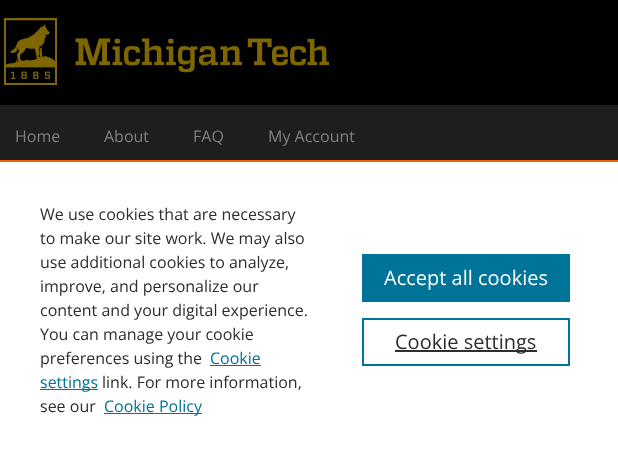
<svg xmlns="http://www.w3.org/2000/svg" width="618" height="458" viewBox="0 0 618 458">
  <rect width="100%" height="100%" fill="#ffffff"/>
  <image x="0" y="0" width="618" height="160" href="img1.png"/>
  <image x="4" y="18" width="325" height="67" href="img2.png"/>
  <text x="15" y="142" font-family="Open Sans" font-size="16" fill="#808080">Home</text>
  <text x="104" y="142" font-family="Open Sans" font-size="16" fill="#808080">About</text>
  <text x="193" y="142" font-family="Open Sans" font-size="16" fill="#808080">FAQ</text>
  <text x="268" y="142" font-family="Open Sans" font-size="16" fill="#808080">My Account</text>
  <rect x="0" y="160" width="618" height="2" fill="#eb6500"/>
  <text x="40" y="220" font-family="Open Sans" font-size="16" fill="#2e2e2e">We use cookies that are necessary</text>
  <text x="40" y="244" font-family="Open Sans" font-size="16" fill="#2e2e2e">to make our site work. We may also</text>
  <text x="40" y="268" font-family="Open Sans" font-size="16" fill="#2e2e2e">use additional cookies to analyze,</text>
  <text x="40" y="292" font-family="Open Sans" font-size="16" fill="#2e2e2e">improve, and personalize our</text>
  <text x="40" y="316" font-family="Open Sans" font-size="16" fill="#2e2e2e">content and your digital experience.</text>
  <text x="40" y="340" font-family="Open Sans" font-size="16" fill="#2e2e2e">You can manage your cookie</text>
  <text x="40" y="364" font-family="Open Sans" font-size="16" fill="#2e2e2e">preferences using the</text>
  <text x="210" y="364" font-family="Open Sans" font-size="16" fill="#007398">Cookie</text>
  <rect x="210" y="365" width="51" height="1" fill="#007398"/>
  <rect x="40" y="389" width="58" height="1" fill="#007398"/>
  <text x="40" y="388" font-family="Open Sans" font-size="16" fill="#007398">settings</text>
  <text x="102" y="388" font-family="Open Sans" font-size="16" fill="#2e2e2e">link. For more information,</text>
  <text x="40" y="412" font-family="Open Sans" font-size="16" fill="#2e2e2e">see our</text>
  <rect x="104" y="413" width="98" height="1" fill="#007398"/>
  <text x="104" y="412" font-family="Open Sans" font-size="16" fill="#007398">Cookie Policy</text>
  <rect x="362" y="254" width="208" height="48" fill="#007398"/>
  <text x="384" y="285" font-family="Open Sans" font-size="20" fill="#ffffff">Accept all cookies</text>
  <rect x="363" y="319" width="206" height="46" fill="none" stroke="#007398" stroke-width="2"/>
  <rect x="395" y="350" width="142" height="2" fill="#2e2e2e"/>
  <text x="395" y="349" font-family="Open Sans" font-size="20" fill="#2e2e2e">Cookie settings</text>
</svg>
